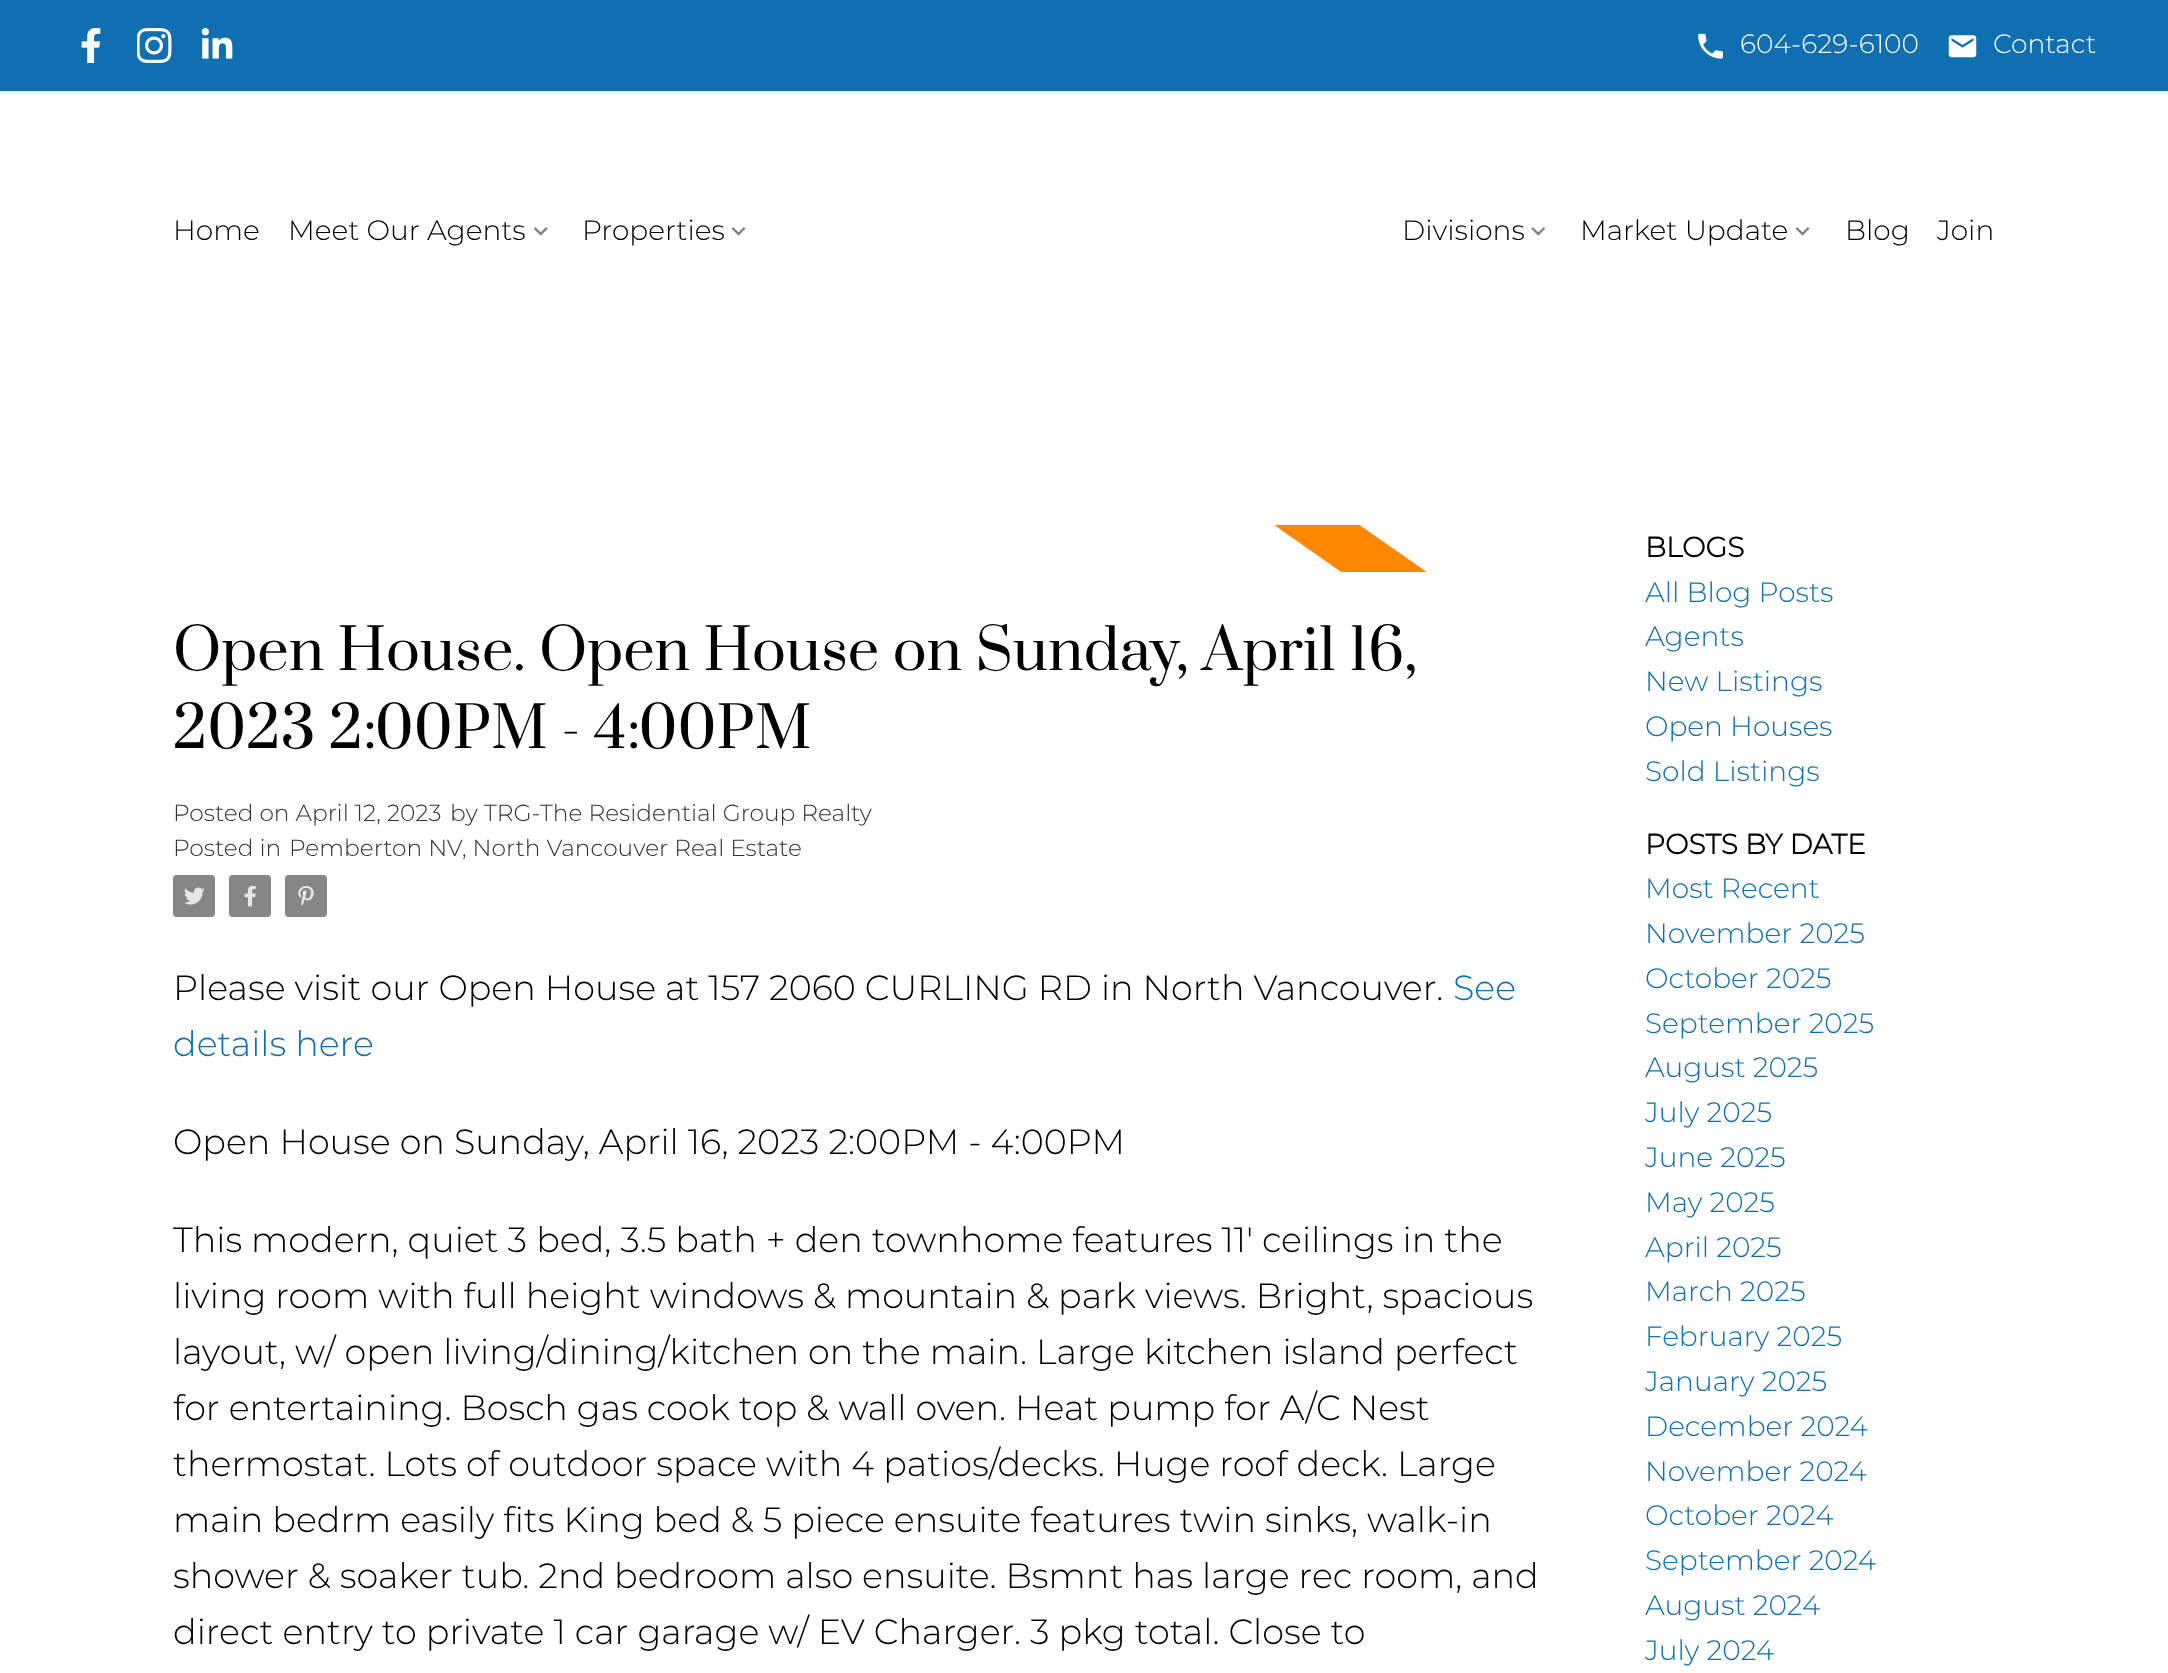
<svg xmlns="http://www.w3.org/2000/svg" width="2168" height="1673" viewBox="0 0 2168 1673">
  <defs>
    <clipPath id="clip1"><rect x="173" y="525" width="1381" height="47"/></clipPath>
  </defs>
  <rect width="100%" height="100%" fill="#ffffff"/>
  <rect x="0" y="0" width="2168" height="91" fill="#0f6fb0"/>
  <image x="81" y="28" width="20" height="35" href="img1.png"/>
  <image x="137" y="28" width="35" height="35" href="img2.png"/>
  <image x="201" y="28" width="32" height="31" href="img3.png"/>
  <image x="1698" y="33" width="25" height="26" href="img4.png"/>
  <text x="1740" y="53" font-family="Montserrat" font-size="26.5" font-weight="100" fill="#ffffff">604-629-6100</text>
  <image x="1948" y="35" width="29" height="23" href="img5.png"/>
  <text x="1993" y="53" font-family="Montserrat" font-size="26.5" font-weight="100" fill="#ffffff">Contact</text>
  <text x="173" y="240" font-family="Montserrat" font-size="28" font-weight="100" fill="#000000">Home</text>
  <text x="288" y="240" font-family="Montserrat" font-size="28" font-weight="100" fill="#000000">Meet Our Agents</text>
  <image x="533" y="227" width="15" height="9" href="img6.png"/>
  <text x="582" y="240" font-family="Montserrat" font-size="28" font-weight="100" fill="#000000">Properties</text>
  <image x="731" y="227" width="15" height="9" href="img7.png"/>
  <text x="1402" y="240" font-family="Montserrat" font-size="28" font-weight="100" fill="#000000">Divisions</text>
  <image x="1531" y="227" width="15" height="9" href="img8.png"/>
  <text x="1580" y="240" font-family="Montserrat" font-size="28" font-weight="100" fill="#000000">Market Update</text>
  <image x="1795" y="227" width="15" height="9" href="img7.png"/>
  <text x="1845" y="240" font-family="Montserrat" font-size="28" font-weight="100" fill="#000000">Blog</text>
  <text x="1937" y="240" font-family="Montserrat" font-size="28" font-weight="100" fill="#000000">Join</text>
  <g clip-path="url(#clip1)">
    <path d="M1275 466L1633 716L1605 757L1247 506Z" fill="#ff8800"/>
  </g>
  <text x="173" y="670" font-family="Prata" font-size="56" fill="#000000">Open House. Open House on Sunday, April 16,</text>
  <text x="173" y="748" font-family="Prata" font-size="56" fill="#000000">2023 2:00PM - 4:00PM</text>
  <text x="173" y="821" font-family="Montserrat" font-size="23.3" font-weight="100" fill="#333333">Posted on April 12, 2023</text>
  <text x="450" y="821" font-family="Montserrat" font-size="23.3" font-weight="100" fill="#333333">by TRG-The Residential Group Realty</text>
  <text x="173" y="856" font-family="Montserrat" font-size="23.3" font-weight="100" fill="#333333">Posted in</text>
  <text x="289" y="856" font-family="Montserrat" font-size="23.3" font-weight="100" fill="#333333">Pemberton NV, North Vancouver Real Estate</text>
  <rect x="173" y="875" width="42" height="42" rx="4" fill="#858585"/>
  <image x="184" y="887" width="21" height="18" href="img9.png"/>
  <rect x="229" y="875" width="42" height="42" rx="4" fill="#858585"/>
  <image x="244" y="886" width="12" height="21" href="img10.png"/>
  <rect x="285" y="875" width="42" height="42" rx="4" fill="#858585"/>
  <image x="298" y="886" width="16" height="20" href="img11.png"/>
  <text x="173" y="1000" font-family="Montserrat" font-size="35" font-weight="100" fill="#000000">Please visit our Open House at 157 2060 CURLING RD in North Vancouver.</text>
  <text x="1453" y="1000" font-family="Montserrat" font-size="35" font-weight="100" fill="#0f6fb0">See</text>
  <text x="173" y="1056" font-family="Montserrat" font-size="35" font-weight="100" fill="#0f6fb0">details here</text>
  <text x="173" y="1154" font-family="Montserrat" font-size="35" font-weight="100" fill="#000000">Open House on Sunday, April 16, 2023 2:00PM - 4:00PM</text>
  <text x="173" y="1252" font-family="Montserrat" font-size="35" font-weight="100" fill="#000000">This modern, quiet 3 bed, 3.5 bath + den townhome features 11' ceilings in the</text>
  <text x="173" y="1308" font-family="Montserrat" font-size="35" font-weight="100" fill="#000000">living room with full height windows &amp; mountain &amp; park views. Bright, spacious</text>
  <text x="173" y="1364" font-family="Montserrat" font-size="35" font-weight="100" fill="#000000">layout, w/ open living/dining/kitchen on the main. Large kitchen island perfect</text>
  <text x="173" y="1420" font-family="Montserrat" font-size="35" font-weight="100" fill="#000000">for entertaining. Bosch gas cook top &amp; wall oven. Heat pump for A/C Nest</text>
  <text x="173" y="1476" font-family="Montserrat" font-size="35" font-weight="100" fill="#000000">thermostat. Lots of outdoor space with 4 patios/decks. Huge roof deck. Large</text>
  <text x="173" y="1532" font-family="Montserrat" font-size="35" font-weight="100" fill="#000000">main bedrm easily fits King bed &amp; 5 piece ensuite features twin sinks, walk-in</text>
  <text x="173" y="1588" font-family="Montserrat" font-size="35" font-weight="100" fill="#000000">shower &amp; soaker tub. 2nd bedroom also ensuite. Bsmnt has large rec room, and</text>
  <text x="173" y="1644" font-family="Montserrat" font-size="35" font-weight="100" fill="#000000">direct entry to private 1 car garage w/ EV Charger. 3 pkg total. Close to</text>
  <text x="1645" y="557" font-family="Montserrat" font-size="28" font-weight="bold" fill="#000000">BLOGS</text>
  <text x="1645" y="602" font-family="Montserrat" font-size="28" font-weight="100" fill="#0f6fb0">All Blog Posts</text>
  <text x="1645" y="646" font-family="Montserrat" font-size="28" font-weight="100" fill="#0f6fb0">Agents</text>
  <text x="1645" y="691" font-family="Montserrat" font-size="28" font-weight="100" fill="#0f6fb0">New Listings</text>
  <text x="1645" y="736" font-family="Montserrat" font-size="28" font-weight="100" fill="#0f6fb0">Open Houses</text>
  <text x="1645" y="781" font-family="Montserrat" font-size="28" font-weight="100" fill="#0f6fb0">Sold Listings</text>
  <text x="1645" y="854" font-family="Montserrat" font-size="28" font-weight="bold" fill="#000000">POSTS BY DATE</text>
  <text x="1645" y="898" font-family="Montserrat" font-size="28" font-weight="100" fill="#0f6fb0">Most Recent</text>
  <text x="1645" y="943" font-family="Montserrat" font-size="28" font-weight="100" fill="#0f6fb0">November 2025</text>
  <text x="1645" y="988" font-family="Montserrat" font-size="28" font-weight="100" fill="#0f6fb0">October 2025</text>
  <text x="1645" y="1033" font-family="Montserrat" font-size="28" font-weight="100" fill="#0f6fb0">September 2025</text>
  <text x="1645" y="1077" font-family="Montserrat" font-size="28" font-weight="100" fill="#0f6fb0">August 2025</text>
  <text x="1645" y="1122" font-family="Montserrat" font-size="28" font-weight="100" fill="#0f6fb0">July 2025</text>
  <text x="1645" y="1167" font-family="Montserrat" font-size="28" font-weight="100" fill="#0f6fb0">June 2025</text>
  <text x="1645" y="1212" font-family="Montserrat" font-size="28" font-weight="100" fill="#0f6fb0">May 2025</text>
  <text x="1645" y="1257" font-family="Montserrat" font-size="28" font-weight="100" fill="#0f6fb0">April 2025</text>
  <text x="1645" y="1301" font-family="Montserrat" font-size="28" font-weight="100" fill="#0f6fb0">March 2025</text>
  <text x="1645" y="1346" font-family="Montserrat" font-size="28" font-weight="100" fill="#0f6fb0">February 2025</text>
  <text x="1645" y="1391" font-family="Montserrat" font-size="28" font-weight="100" fill="#0f6fb0">January 2025</text>
  <text x="1645" y="1436" font-family="Montserrat" font-size="28" font-weight="100" fill="#0f6fb0">December 2024</text>
  <text x="1645" y="1481" font-family="Montserrat" font-size="28" font-weight="100" fill="#0f6fb0">November 2024</text>
  <text x="1645" y="1525" font-family="Montserrat" font-size="28" font-weight="100" fill="#0f6fb0">October 2024</text>
  <text x="1645" y="1570" font-family="Montserrat" font-size="28" font-weight="100" fill="#0f6fb0">September 2024</text>
  <text x="1645" y="1615" font-family="Montserrat" font-size="28" font-weight="100" fill="#0f6fb0">August 2024</text>
  <text x="1645" y="1660" font-family="Montserrat" font-size="28" font-weight="100" fill="#0f6fb0">July 2024</text>
</svg>
